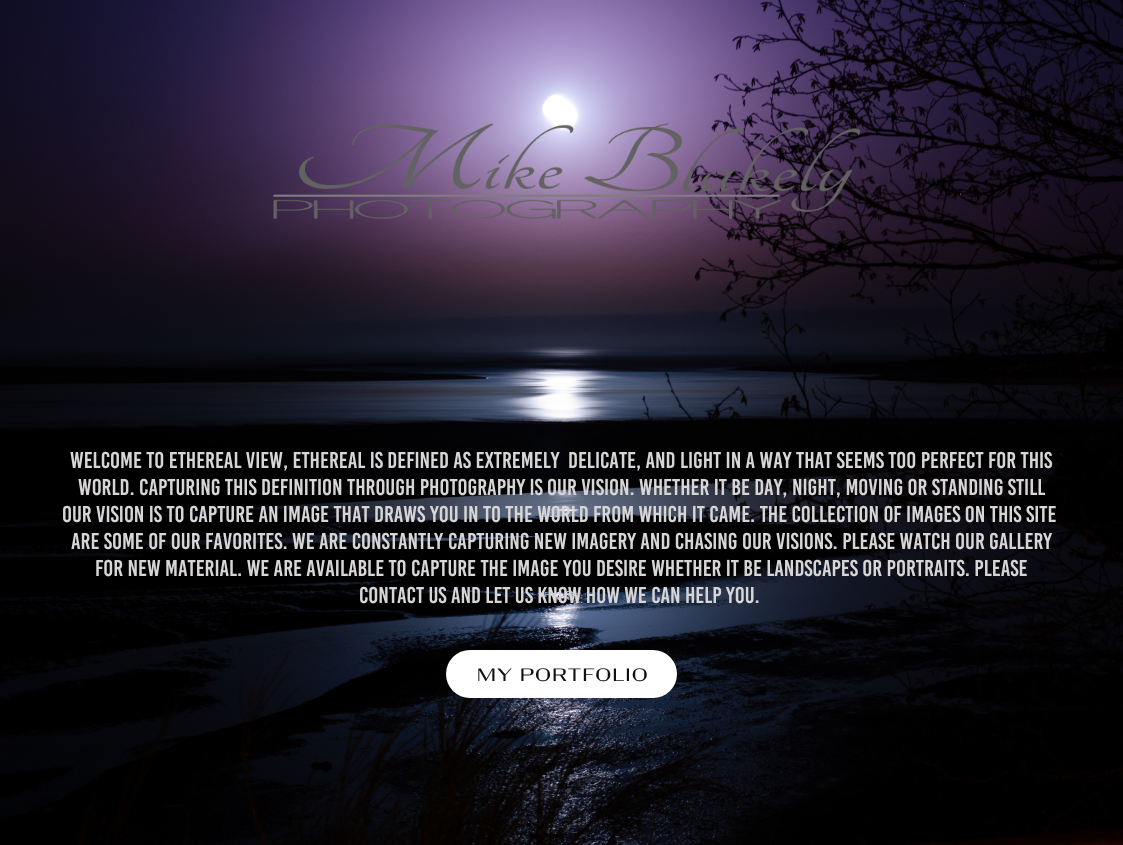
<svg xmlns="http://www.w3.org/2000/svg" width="1123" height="845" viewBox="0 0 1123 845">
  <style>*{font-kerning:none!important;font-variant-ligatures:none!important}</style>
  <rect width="100%" height="100%" fill="#ffffff"/>
  <image x="0" y="0" width="1123" height="845" href="img1.png"/>
  <image x="273" y="123" width="588" height="96" href="img2.png"/>
  <text x="70" y="468" font-family="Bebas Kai" font-size="23" fill="#d7d5d5">Welcome to Ethereal View,  Ethereal is defined as extremely</text>
  <text x="568" y="468" font-family="Bebas Kai" font-size="23" fill="#d7d5d5">delicate, and light in a way</text>
  <text x="796" y="468" font-family="Bebas Kai" font-size="23" fill="#d7d5d5">that seems too perfect for this</text>
  <text x="78" y="495" font-family="Bebas Kai" font-size="23" fill="#d7d5d5">world. Capturing this definition through photography is our vision. Whether it be day,</text>
  <text x="792" y="495" font-family="Bebas Kai" font-size="23" fill="#d7d5d5">night, moving or standing still</text>
  <text x="62" y="522" font-family="Bebas Kai" font-size="23" fill="#d7d5d5">our vision is to capture an image that draws</text>
  <text x="430" y="522" font-family="Bebas Kai" font-size="23" fill="#d7d5d5">you in to the world from which it came.  The collection of images on this site</text>
  <text x="71" y="549" font-family="Bebas Kai" font-size="23" fill="#d7d5d5">are some of our favorites. We are constantly</text>
  <text x="448" y="549" font-family="Bebas Kai" font-size="23" fill="#d7d5d5">capturing new imagery and chasing our visions. Please watch our gallery</text>
  <text x="95" y="576" font-family="Bebas Kai" font-size="23" fill="#d7d5d5">for new material. We are available to capture the image</text>
  <text x="563" y="576" font-family="Bebas Kai" font-size="23" fill="#d7d5d5">you desire whether it be landscapes or portraits. Please</text>
  <text x="359" y="603" font-family="Bebas Kai" font-size="23" fill="#d7d5d5">contact us and let us know how we can help you.</text>
  <text x="760" y="603" font-family="Bebas Kai" font-size="23" fill="#d7d5d5"> </text>
  <rect x="446" y="650" width="231" height="48" rx="24" fill="#ffffff"/>
  <text x="476" y="681" font-family="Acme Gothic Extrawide" font-size="18" font-weight="300" fill="#111111">MY PORTFOLIO</text>
</svg>
